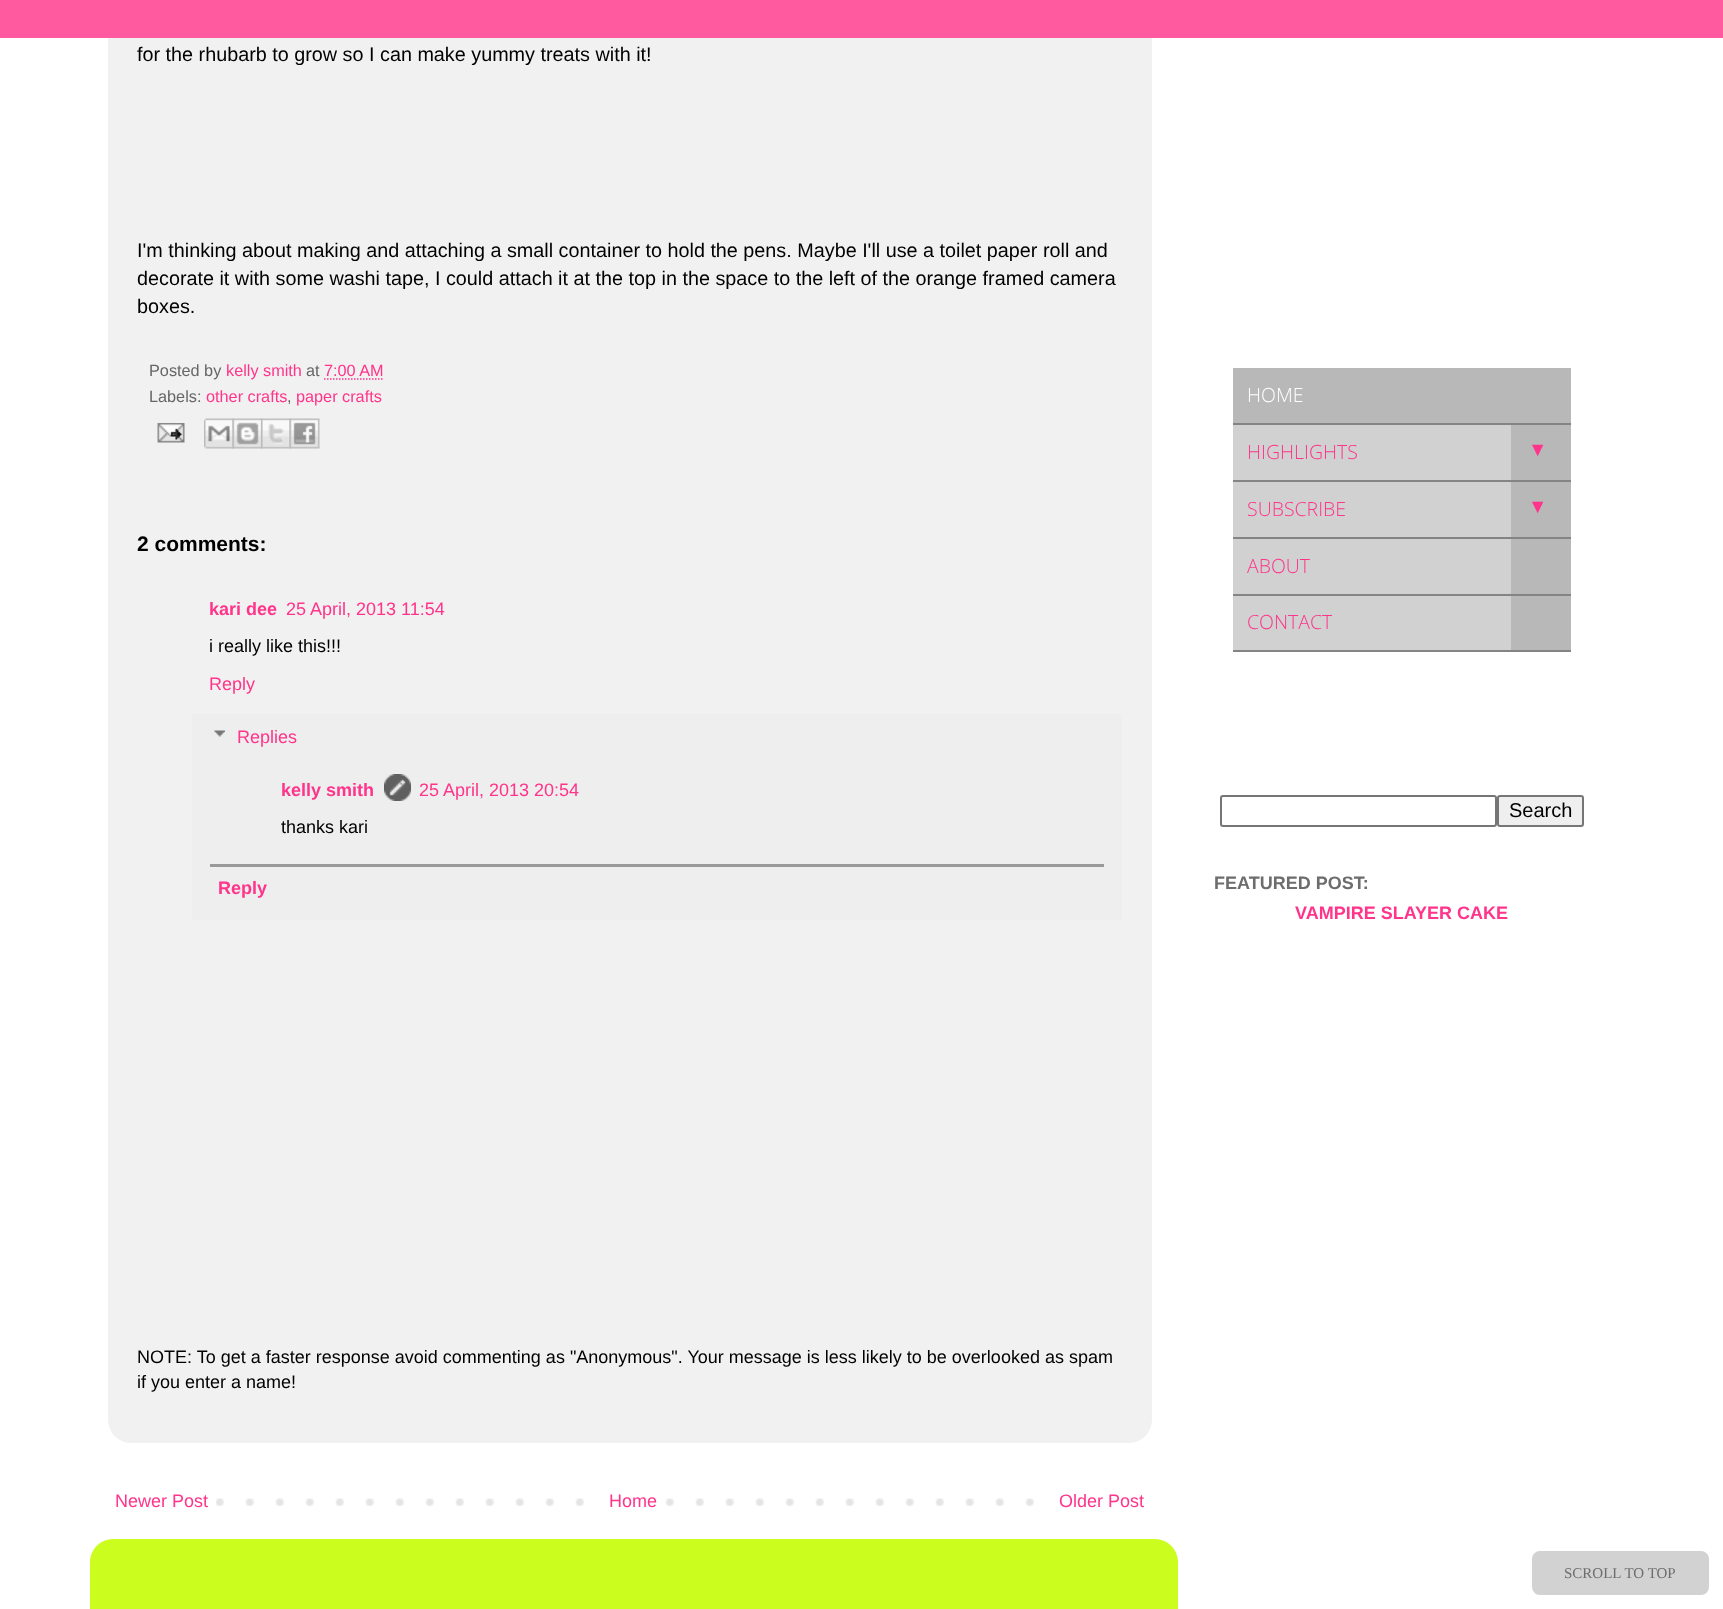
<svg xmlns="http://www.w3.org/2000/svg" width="1723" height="1609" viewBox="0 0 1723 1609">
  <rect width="100%" height="100%" fill="#ffffff"/>
  <rect x="108" y="-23" width="1044" height="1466" rx="23" fill="#f1f1f1"/>
  <rect x="0" y="0" width="1723" height="38" fill="#ff5a9f"/>
  <text x="137" y="61" font-family="Liberation Sans" font-size="19.8" fill="#000000">for the rhubarb to grow so I can make yummy treats with it!</text>
  <text x="137" y="257" font-family="Liberation Sans" font-size="19.8" fill="#000000">I'm thinking about making and attaching a small container to hold the pens. Maybe I'll use a toilet paper roll and</text>
  <text x="137" y="285" font-family="Liberation Sans" font-size="19.8" fill="#000000">decorate it with some washi tape, I could attach it at the top in the space to the left of the orange framed camera</text>
  <text x="137" y="313" font-family="Liberation Sans" font-size="19.8" fill="#000000">boxes.</text>
  <text x="149" y="376" font-family="Liberation Sans" font-size="16.25" fill="#666666">Posted by</text>
  <text x="226" y="376" font-family="Liberation Sans" font-size="16.25" fill="#ff348a">kelly smith</text>
  <text x="306" y="376" font-family="Liberation Sans" font-size="16.25" fill="#666666">at</text>
  <text x="324" y="376" font-family="Liberation Sans" font-size="16.25" fill="#ff348a">7:00 AM</text>
  <path d="M324 379H383.5" fill="none" stroke="#ff348a" stroke-width="1.5" stroke-dasharray="1.5 1.5"/>
  <text x="149" y="402" font-family="Liberation Sans" font-size="16.25" fill="#666666">Labels:</text>
  <text x="206" y="402" font-family="Liberation Sans" font-size="16.25" fill="#ff348a">other crafts</text>
  <text x="287" y="402" font-family="Liberation Sans" font-size="16.25" fill="#666666">,</text>
  <text x="296" y="402" font-family="Liberation Sans" font-size="16.25" fill="#ff348a">paper crafts</text>
  <image x="157" y="423" width="28" height="20" href="img1.png"/>
  <image x="204" y="418" width="30" height="31" href="img2.png"/>
  <image x="232" y="418" width="31" height="31" href="img3.png"/>
  <image x="261" y="418" width="30" height="31" href="img4.png"/>
  <image x="289" y="418" width="31" height="31" href="img5.png"/>
  <text x="137" y="551" font-family="Liberation Sans" font-size="21" font-weight="bold" fill="#000000">2 comments:</text>
  <text x="209" y="615" font-family="Liberation Sans" font-size="18" font-weight="bold" fill="#ff348a">kari dee</text>
  <text x="286" y="615" font-family="Liberation Sans" font-size="18" fill="#ff348a">25 April, 2013 11:54</text>
  <text x="209" y="652" font-family="Liberation Sans" font-size="18" fill="#000000">i really like this!!!</text>
  <text x="209" y="690" font-family="Liberation Sans" font-size="18" fill="#ff348a">Reply</text>
  <rect x="192" y="714" width="930" height="206" fill="#eeeeee"/>
  <image x="214" y="730" width="11" height="7" href="img6.png"/>
  <text x="237" y="743" font-family="Liberation Sans" font-size="18" fill="#ff348a">Replies</text>
  <text x="281" y="796" font-family="Liberation Sans" font-size="18" font-weight="bold" fill="#ff348a">kelly smith</text>
  <image x="384" y="774" width="27" height="27" href="img7.png"/>
  <text x="419" y="796" font-family="Liberation Sans" font-size="18" fill="#ff348a">25 April, 2013 20:54</text>
  <text x="281" y="833" font-family="Liberation Sans" font-size="18" fill="#000000">thanks kari</text>
  <rect x="210" y="864" width="894" height="3" fill="#999999"/>
  <text x="218" y="894" font-family="Liberation Sans" font-size="18" font-weight="bold" fill="#ff348a">Reply</text>
  <text x="137" y="1363" font-family="Liberation Sans" font-size="18" fill="#000000">NOTE: To get a faster response avoid commenting as "Anonymous". Your message is less likely to be overlooked as spam</text>
  <text x="137" y="1388" font-family="Liberation Sans" font-size="18" fill="#000000">if you enter a name!</text>
  <image x="216" y="1498" width="818" height="8" href="img8.png"/>
  <text x="115" y="1507" font-family="Liberation Sans" font-size="18" fill="#ff348a">Newer Post</text>
  <rect x="605" y="1498" width="40" height="8" fill="#ffffff"/>
  <text x="609" y="1507" font-family="Liberation Sans" font-size="18" fill="#ff348a">Home</text>
  <text x="1059" y="1507" font-family="Liberation Sans" font-size="18" fill="#ff348a">Older Post</text>
  <rect x="1233" y="368" width="338" height="55" fill="#b8b8b8"/>
  <rect x="1233" y="423" width="338" height="2" fill="#848484"/>
  <text x="1247" y="402" font-family="Open Sans" font-size="19.5" font-weight="300" fill="#ffffff">HOME</text>
  <rect x="1511" y="425" width="60" height="55" fill="#b8b8b8"/>
  <rect x="1233" y="480" width="338" height="2" fill="#848484"/>
  <rect x="1233" y="425" width="278" height="55" fill="#d1d1d1"/>
  <text x="1247" y="459" font-family="Open Sans" font-size="19.5" font-weight="300" fill="#ff348a">HIGHLIGHTS</text>
  <text x="1528" y="456" font-family="Liberation Sans" font-size="19.5" fill="#ff348a">▼</text>
  <rect x="1511" y="482" width="60" height="55" fill="#b8b8b8"/>
  <rect x="1233" y="537" width="338" height="2" fill="#848484"/>
  <rect x="1233" y="482" width="278" height="55" fill="#d1d1d1"/>
  <text x="1247" y="516" font-family="Open Sans" font-size="19.5" font-weight="300" fill="#ff348a">SUBSCRIBE</text>
  <text x="1528" y="513" font-family="Liberation Sans" font-size="19.5" fill="#ff348a">▼</text>
  <rect x="1511" y="539" width="60" height="55" fill="#b8b8b8"/>
  <rect x="1233" y="594" width="338" height="2" fill="#848484"/>
  <rect x="1233" y="539" width="278" height="55" fill="#d1d1d1"/>
  <text x="1247" y="573" font-family="Open Sans" font-size="19.5" font-weight="300" fill="#ff348a">ABOUT</text>
  <rect x="1511" y="596" width="60" height="54" fill="#b8b8b8"/>
  <rect x="1233" y="650" width="338" height="2" fill="#848484"/>
  <rect x="1233" y="596" width="278" height="54" fill="#d1d1d1"/>
  <text x="1247" y="629" font-family="Open Sans" font-size="19.5" font-weight="300" fill="#ff348a">CONTACT</text>
  <rect x="1221" y="796" width="275" height="30" rx="2" fill="none" stroke="#767676" stroke-width="2"/>
  <rect x="1498" y="796" width="85" height="30" rx="2" fill="#efefef" stroke="#767676" stroke-width="2"/>
  <text x="1509" y="817" font-family="Liberation Sans" font-size="20" fill="#000000">Search</text>
  <text x="1214" y="889" font-family="Liberation Sans" font-size="18" font-weight="bold" fill="#6d6d6d">FEATURED POST:</text>
  <text x="1295" y="919" font-family="Liberation Sans" font-size="18" font-weight="bold" fill="#ff348a">VAMPIRE SLAYER CAKE</text>
  <rect x="90" y="1539" width="1088" height="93" rx="23" fill="#cbfd1e"/>
  <rect x="1533" y="1552" width="175" height="42" rx="7" fill="#d2d2d2" stroke="#d2d2d2" stroke-width="2"/>
  <text x="1564" y="1578" font-family="Liberation Serif" font-size="15" fill="#6d6d6d">SCROLL TO TOP</text>
</svg>
